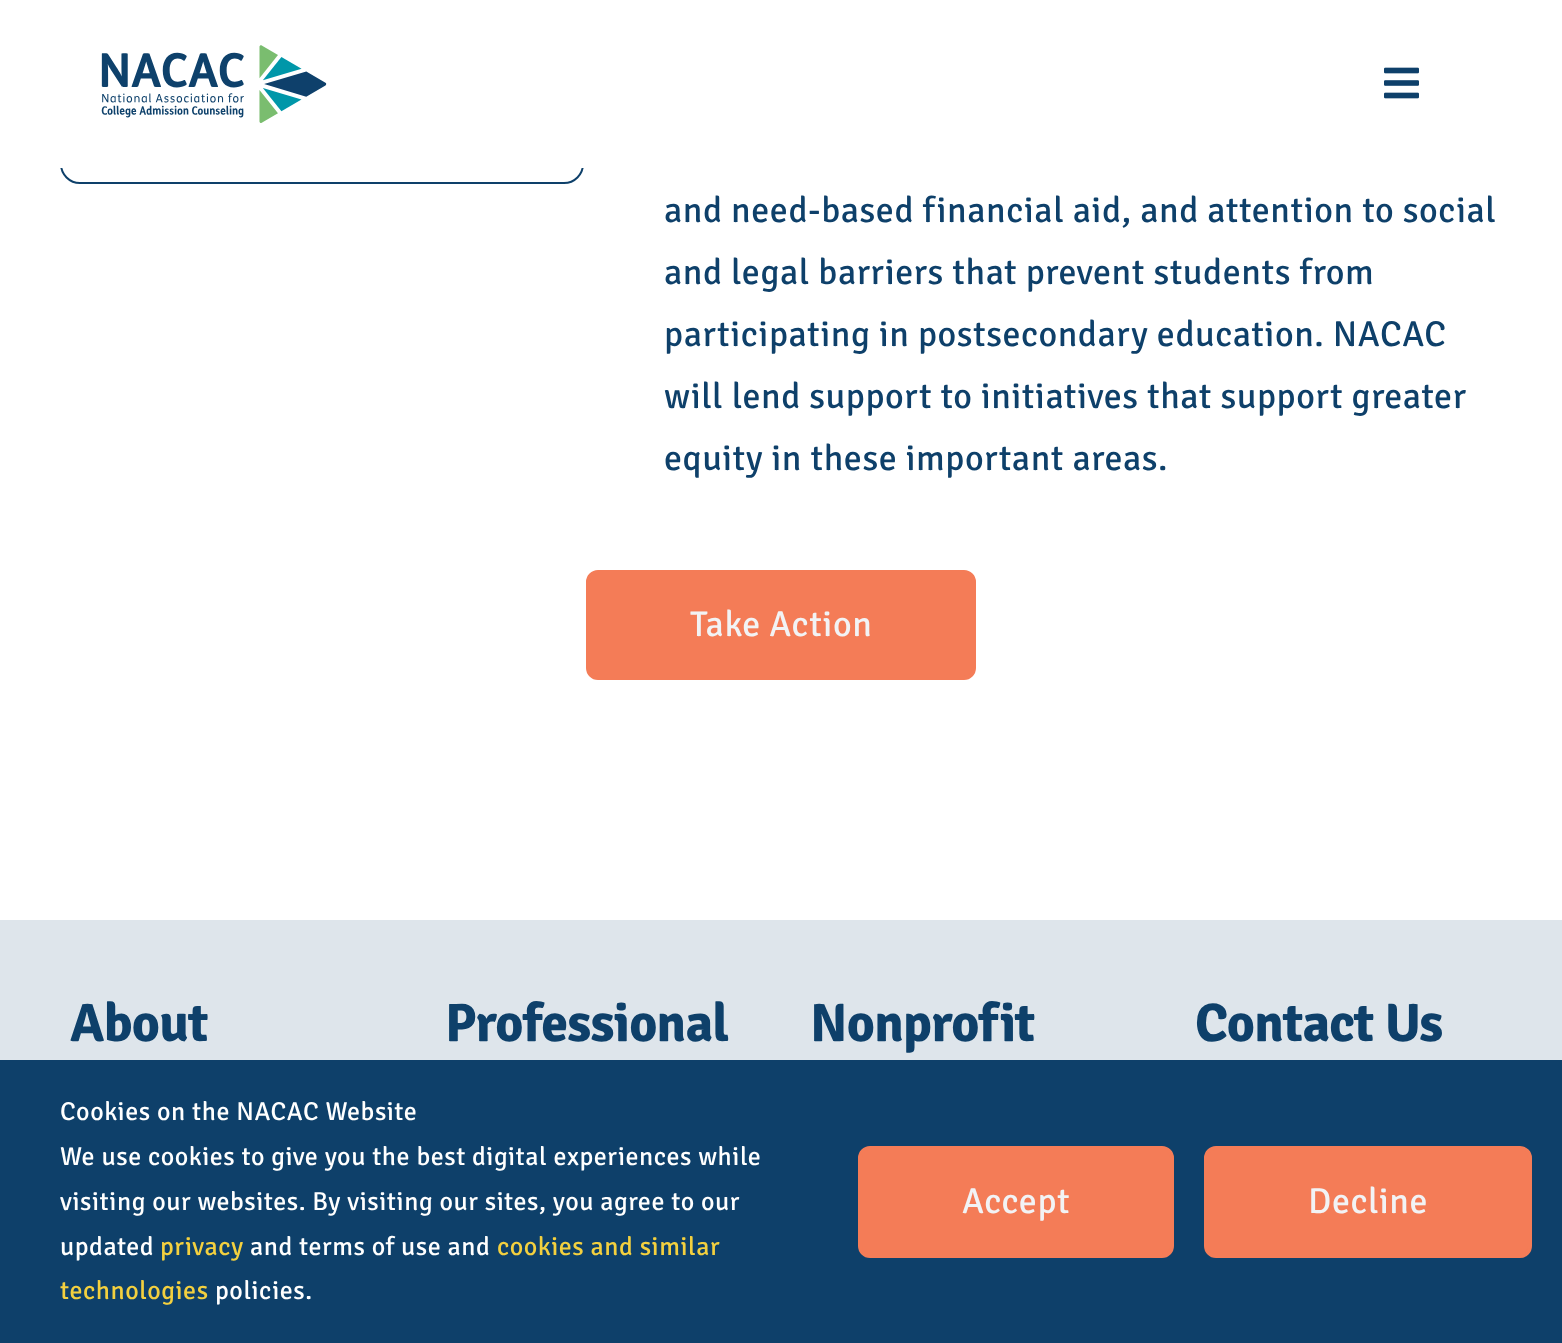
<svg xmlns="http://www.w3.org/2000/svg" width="1562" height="1343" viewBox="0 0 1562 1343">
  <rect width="100%" height="100%" fill="#ffffff"/>
  <rect x="61" y="-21" width="522" height="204" rx="19" fill="none" stroke="#0e406a" stroke-width="2"/>
  <rect x="60" y="0" width="524" height="168" fill="#ffffff"/>
  <image x="101" y="45" width="226" height="78" href="img1.png"/>
  <image x="1384" y="67" width="35" height="32" href="img2.png"/>
  <text x="664" y="222" font-family="Signika" font-size="36" letter-spacing="0.55" fill="#0e406a">and need-based financial aid, and attention to social</text>
  <text x="664" y="284" font-family="Signika" font-size="36" letter-spacing="0.55" fill="#0e406a">and legal barriers that prevent students from</text>
  <text x="664" y="346" font-family="Signika" font-size="36" letter-spacing="0.55" fill="#0e406a">participating in postsecondary education. NACAC</text>
  <text x="664" y="408" font-family="Signika" font-size="36" letter-spacing="0.55" fill="#0e406a">will lend support to initiatives that support greater</text>
  <text x="664" y="470" font-family="Signika" font-size="36" letter-spacing="0.55" fill="#0e406a">equity in these important areas.</text>
  <rect x="588" y="572" width="386" height="106" rx="10" fill="#f47c57" stroke="#f47c57" stroke-width="4"/>
  <text x="690" y="636" font-family="Signika" font-size="36" letter-spacing="0.55" fill="#f2f3f5">Take Action</text>
  <rect x="0" y="920" width="1562" height="140" fill="#dee5eb"/>
  <text x="70" y="1041" font-family="Signika" font-size="54" font-weight="bold" letter-spacing="-0.75" fill="#0e406a">About</text>
  <text x="445" y="1041" font-family="Signika" font-size="54" font-weight="bold" letter-spacing="-0.75" fill="#0e406a">Professional</text>
  <text x="810" y="1041" font-family="Signika" font-size="54" font-weight="bold" letter-spacing="-0.75" fill="#0e406a">Nonprofit</text>
  <text x="1195" y="1041" font-family="Signika" font-size="54" font-weight="bold" letter-spacing="-0.75" fill="#0e406a">Contact Us</text>
  <rect x="0" y="1060" width="1562" height="283" fill="#0e406a"/>
  <text x="60" y="1120" font-family="Signika" font-size="26" letter-spacing="0.55" fill="#ffffff">Cookies on the NACAC Website</text>
  <text x="60" y="1165" font-family="Signika" font-size="26" letter-spacing="0.55" fill="#ffffff">We use cookies to give you the best digital experiences while</text>
  <text x="60" y="1210" font-family="Signika" font-size="26" letter-spacing="0.55" fill="#ffffff">visiting our websites. By visiting our sites, you agree to our</text>
  <text x="60" y="1255" font-family="Signika" font-size="26" letter-spacing="0.55" fill="#ffffff">updated</text>
  <text x="160" y="1255" font-family="Signika" font-size="26" letter-spacing="0.55" fill="#f3d03f">privacy</text>
  <text x="250" y="1255" font-family="Signika" font-size="26" letter-spacing="0.55" fill="#ffffff">and terms of use and</text>
  <text x="497" y="1255" font-family="Signika" font-size="26" letter-spacing="0.55" fill="#f3d03f">cookies and similar</text>
  <text x="60" y="1299" font-family="Signika" font-size="26" letter-spacing="0.55" fill="#f3d03f">technologies</text>
  <text x="215" y="1299" font-family="Signika" font-size="26" letter-spacing="0.55" fill="#ffffff">policies.</text>
  <rect x="860" y="1148" width="312" height="108" rx="10" fill="#f47c57" stroke="#f47c57" stroke-width="4"/>
  <text x="962" y="1213" font-family="Signika" font-size="36" letter-spacing="0.55" fill="#f2f3f5">Accept</text>
  <rect x="1206" y="1148" width="324" height="108" rx="10" fill="#f47c57" stroke="#f47c57" stroke-width="4"/>
  <text x="1308" y="1213" font-family="Signika" font-size="36" letter-spacing="0.55" fill="#f2f3f5">Decline</text>
</svg>
